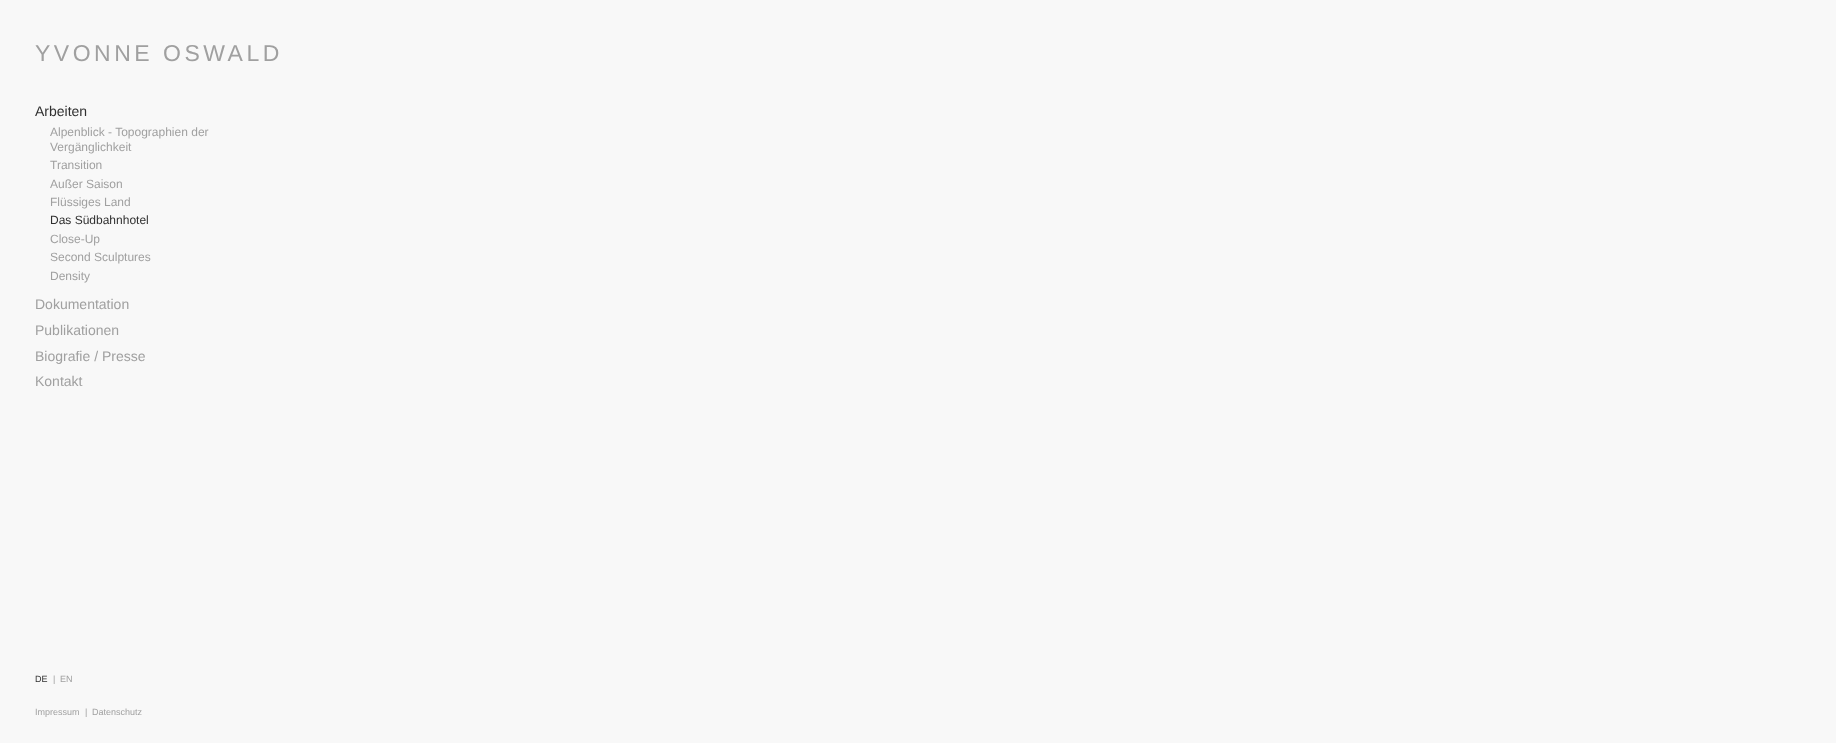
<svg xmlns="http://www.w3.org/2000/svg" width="1836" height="743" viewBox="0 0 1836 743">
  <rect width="100%" height="100%" fill="#f8f8f8"/>
  <text x="35" y="61" font-family="Liberation Sans" font-size="23" letter-spacing="3.5" fill="#a0a0a0">YVONNE OSWALD</text>
  <text x="35" y="116" font-family="Liberation Sans" font-size="14" fill="#303030">Arbeiten</text>
  <text x="50" y="136" font-family="Liberation Sans" font-size="12" fill="#a0a0a0">Alpenblick - Topographien der</text>
  <text x="50" y="151" font-family="Liberation Sans" font-size="12" fill="#a0a0a0">Vergänglichkeit</text>
  <text x="50" y="169" font-family="Liberation Sans" font-size="12" fill="#a0a0a0">Transition</text>
  <text x="50" y="188" font-family="Liberation Sans" font-size="12" fill="#a0a0a0">Außer Saison</text>
  <text x="50" y="206" font-family="Liberation Sans" font-size="12" fill="#a0a0a0">Flüssiges Land</text>
  <text x="50" y="224" font-family="Liberation Sans" font-size="12" fill="#303030">Das Südbahnhotel</text>
  <text x="50" y="243" font-family="Liberation Sans" font-size="12" fill="#a0a0a0">Close-Up</text>
  <text x="50" y="261" font-family="Liberation Sans" font-size="12" fill="#a0a0a0">Second Sculptures</text>
  <text x="50" y="280" font-family="Liberation Sans" font-size="12" fill="#a0a0a0">Density</text>
  <text x="35" y="309" font-family="Liberation Sans" font-size="14" fill="#a0a0a0">Dokumentation</text>
  <text x="35" y="335" font-family="Liberation Sans" font-size="14" fill="#a0a0a0">Publikationen</text>
  <text x="35" y="361" font-family="Liberation Sans" font-size="14" fill="#a0a0a0">Biografie / Presse</text>
  <text x="35" y="386" font-family="Liberation Sans" font-size="14" fill="#a0a0a0">Kontakt</text>
  <text x="35" y="682" font-family="Liberation Sans" font-size="9" fill="#303030">DE</text>
  <text x="53" y="682" font-family="Liberation Sans" font-size="9" fill="#a0a0a0">|</text>
  <text x="60" y="682" font-family="Liberation Sans" font-size="9" fill="#a0a0a0">EN</text>
  <text x="35" y="715" font-family="Liberation Sans" font-size="9" fill="#a0a0a0">Impressum</text>
  <text x="85" y="715" font-family="Liberation Sans" font-size="9" fill="#a0a0a0">|</text>
  <text x="92" y="715" font-family="Liberation Sans" font-size="9" fill="#a0a0a0">Datenschutz</text>
</svg>
